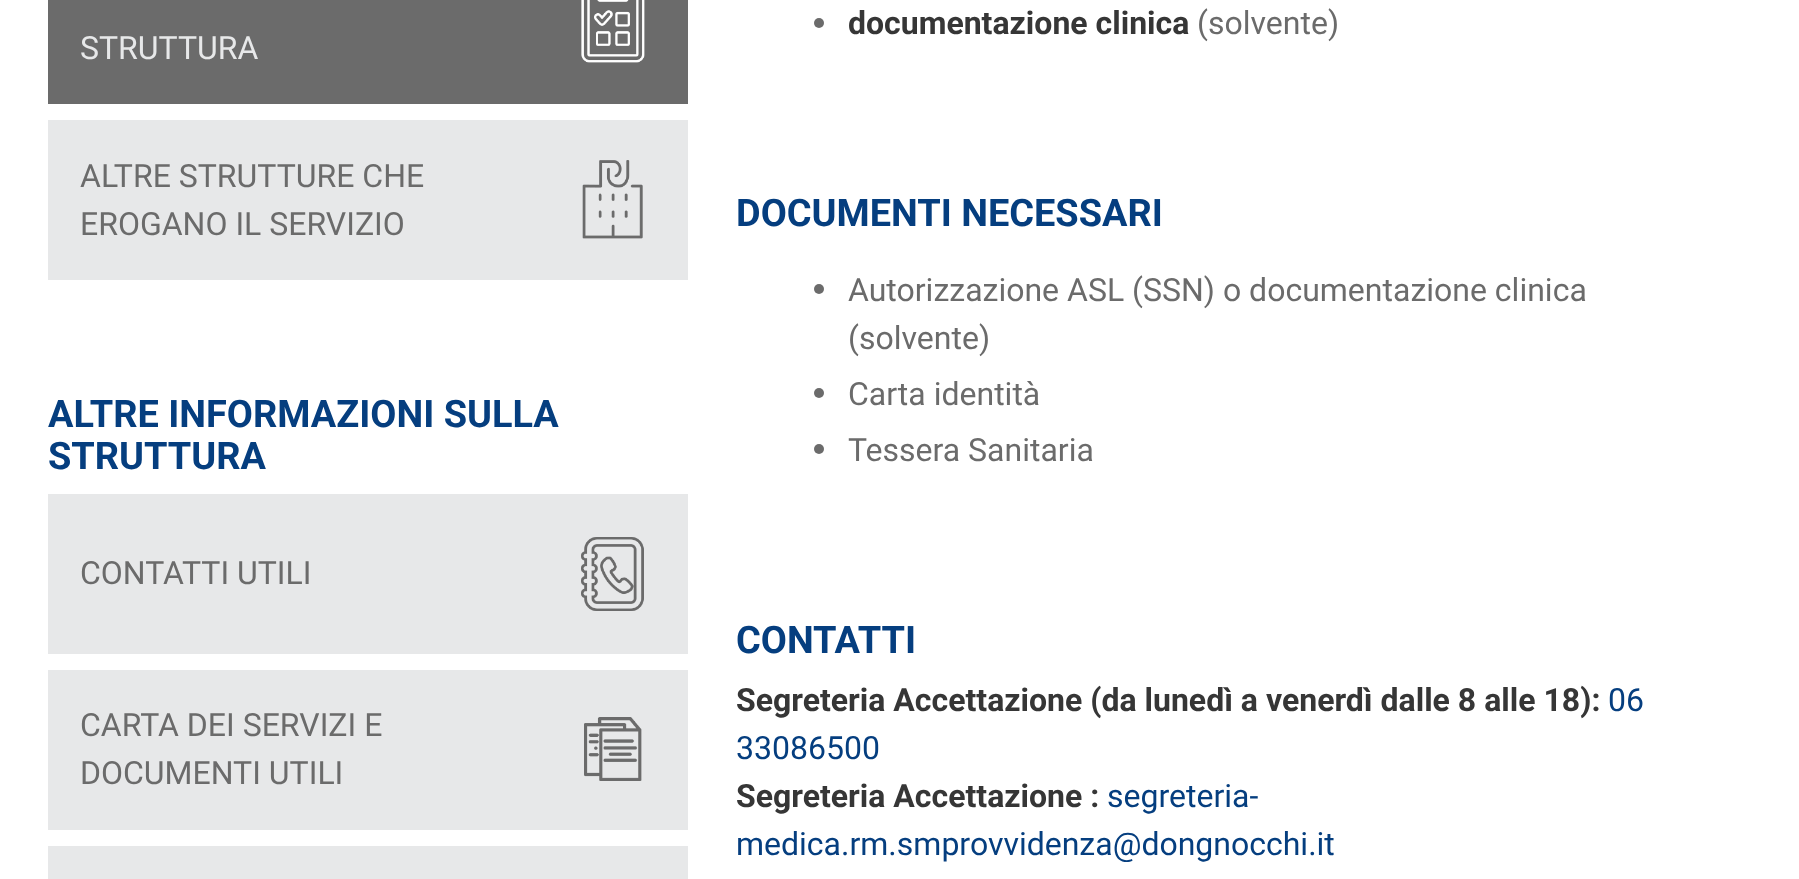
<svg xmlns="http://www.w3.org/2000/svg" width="1799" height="879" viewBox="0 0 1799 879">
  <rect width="100%" height="100%" fill="#ffffff"/>
  <rect x="48" y="0" width="640" height="104" fill="#6b6b6b"/>
  <image x="581" y="0" width="64" height="63" href="img1.png"/>
  <text x="80" y="59" font-family="Roboto" font-size="32" fill="#e7e8e9">STRUTTURA</text>
  <rect x="48" y="120" width="640" height="160" fill="#e7e8e9"/>
  <image x="582" y="160" width="61" height="79" href="img2.png"/>
  <text x="80" y="187" font-family="Roboto" font-size="32" fill="#6b6b6b">ALTRE STRUTTURE CHE</text>
  <text x="80" y="235" font-family="Roboto" font-size="32" fill="#6b6b6b">EROGANO IL SERVIZIO</text>
  <text x="48" y="427" font-family="Roboto" font-size="37.9" font-weight="bold" fill="#053e7f">ALTRE INFORMAZIONI SULLA</text>
  <text x="48" y="469" font-family="Roboto" font-size="37.9" font-weight="bold" fill="#053e7f">STRUTTURA</text>
  <rect x="48" y="494" width="640" height="160" fill="#e7e8e9"/>
  <image x="581" y="537" width="63" height="74" href="img3.png"/>
  <text x="80" y="584" font-family="Roboto" font-size="32" fill="#6b6b6b">CONTATTI UTILI</text>
  <rect x="48" y="670" width="640" height="160" fill="#e7e8e9"/>
  <image x="584" y="717" width="58" height="64" href="img4.png"/>
  <text x="80" y="736" font-family="Roboto" font-size="32" fill="#6b6b6b">CARTA DEI SERVIZI E</text>
  <text x="80" y="784" font-family="Roboto" font-size="32" fill="#6b6b6b">DOCUMENTI UTILI</text>
  <rect x="48" y="846" width="640" height="33" fill="#e7e8e9"/>
  <circle cx="819" cy="23" r="5" fill="#6b6b6b"/>
  <text x="848" y="34" font-family="Roboto" font-size="32" font-weight="bold" fill="#363636">documentazione clinica</text>
  <text x="1197" y="34" font-family="Roboto" font-size="32" fill="#6b6b6b">(solvente)</text>
  <text x="736" y="226" font-family="Roboto" font-size="37.9" font-weight="bold" fill="#053e7f">DOCUMENTI NECESSARI</text>
  <circle cx="819" cy="289" r="5" fill="#6b6b6b"/>
  <text x="848" y="301" font-family="Roboto" font-size="32" fill="#6b6b6b">Autorizzazione ASL (SSN) o documentazione clinica</text>
  <text x="848" y="349" font-family="Roboto" font-size="32" fill="#6b6b6b">(solvente)</text>
  <circle cx="819" cy="393" r="5" fill="#6b6b6b"/>
  <text x="848" y="405" font-family="Roboto" font-size="32" fill="#6b6b6b">Carta identità</text>
  <circle cx="819" cy="449" r="5" fill="#6b6b6b"/>
  <text x="848" y="461" font-family="Roboto" font-size="32" fill="#6b6b6b">Tessera Sanitaria</text>
  <text x="736" y="653" font-family="Roboto" font-size="37.9" font-weight="bold" fill="#053e7f">CONTATTI</text>
  <text x="736" y="711" font-family="Roboto" font-size="32" font-weight="bold" fill="#363636">Segreteria Accettazione (da lunedì a venerdì dalle 8 alle 18):</text>
  <text x="1608" y="711" font-family="Roboto" font-size="32" fill="#053e7f">06</text>
  <text x="736" y="759" font-family="Roboto" font-size="32" fill="#053e7f">33086500</text>
  <text x="736" y="807" font-family="Roboto" font-size="32" font-weight="bold" fill="#363636">Segreteria Accettazione :</text>
  <text x="1107" y="807" font-family="Roboto" font-size="32" fill="#053e7f">segreteria-</text>
  <text x="736" y="855" font-family="Roboto" font-size="32" fill="#053e7f">medica.rm.smprovvidenza@dongnocchi.it</text>
</svg>
